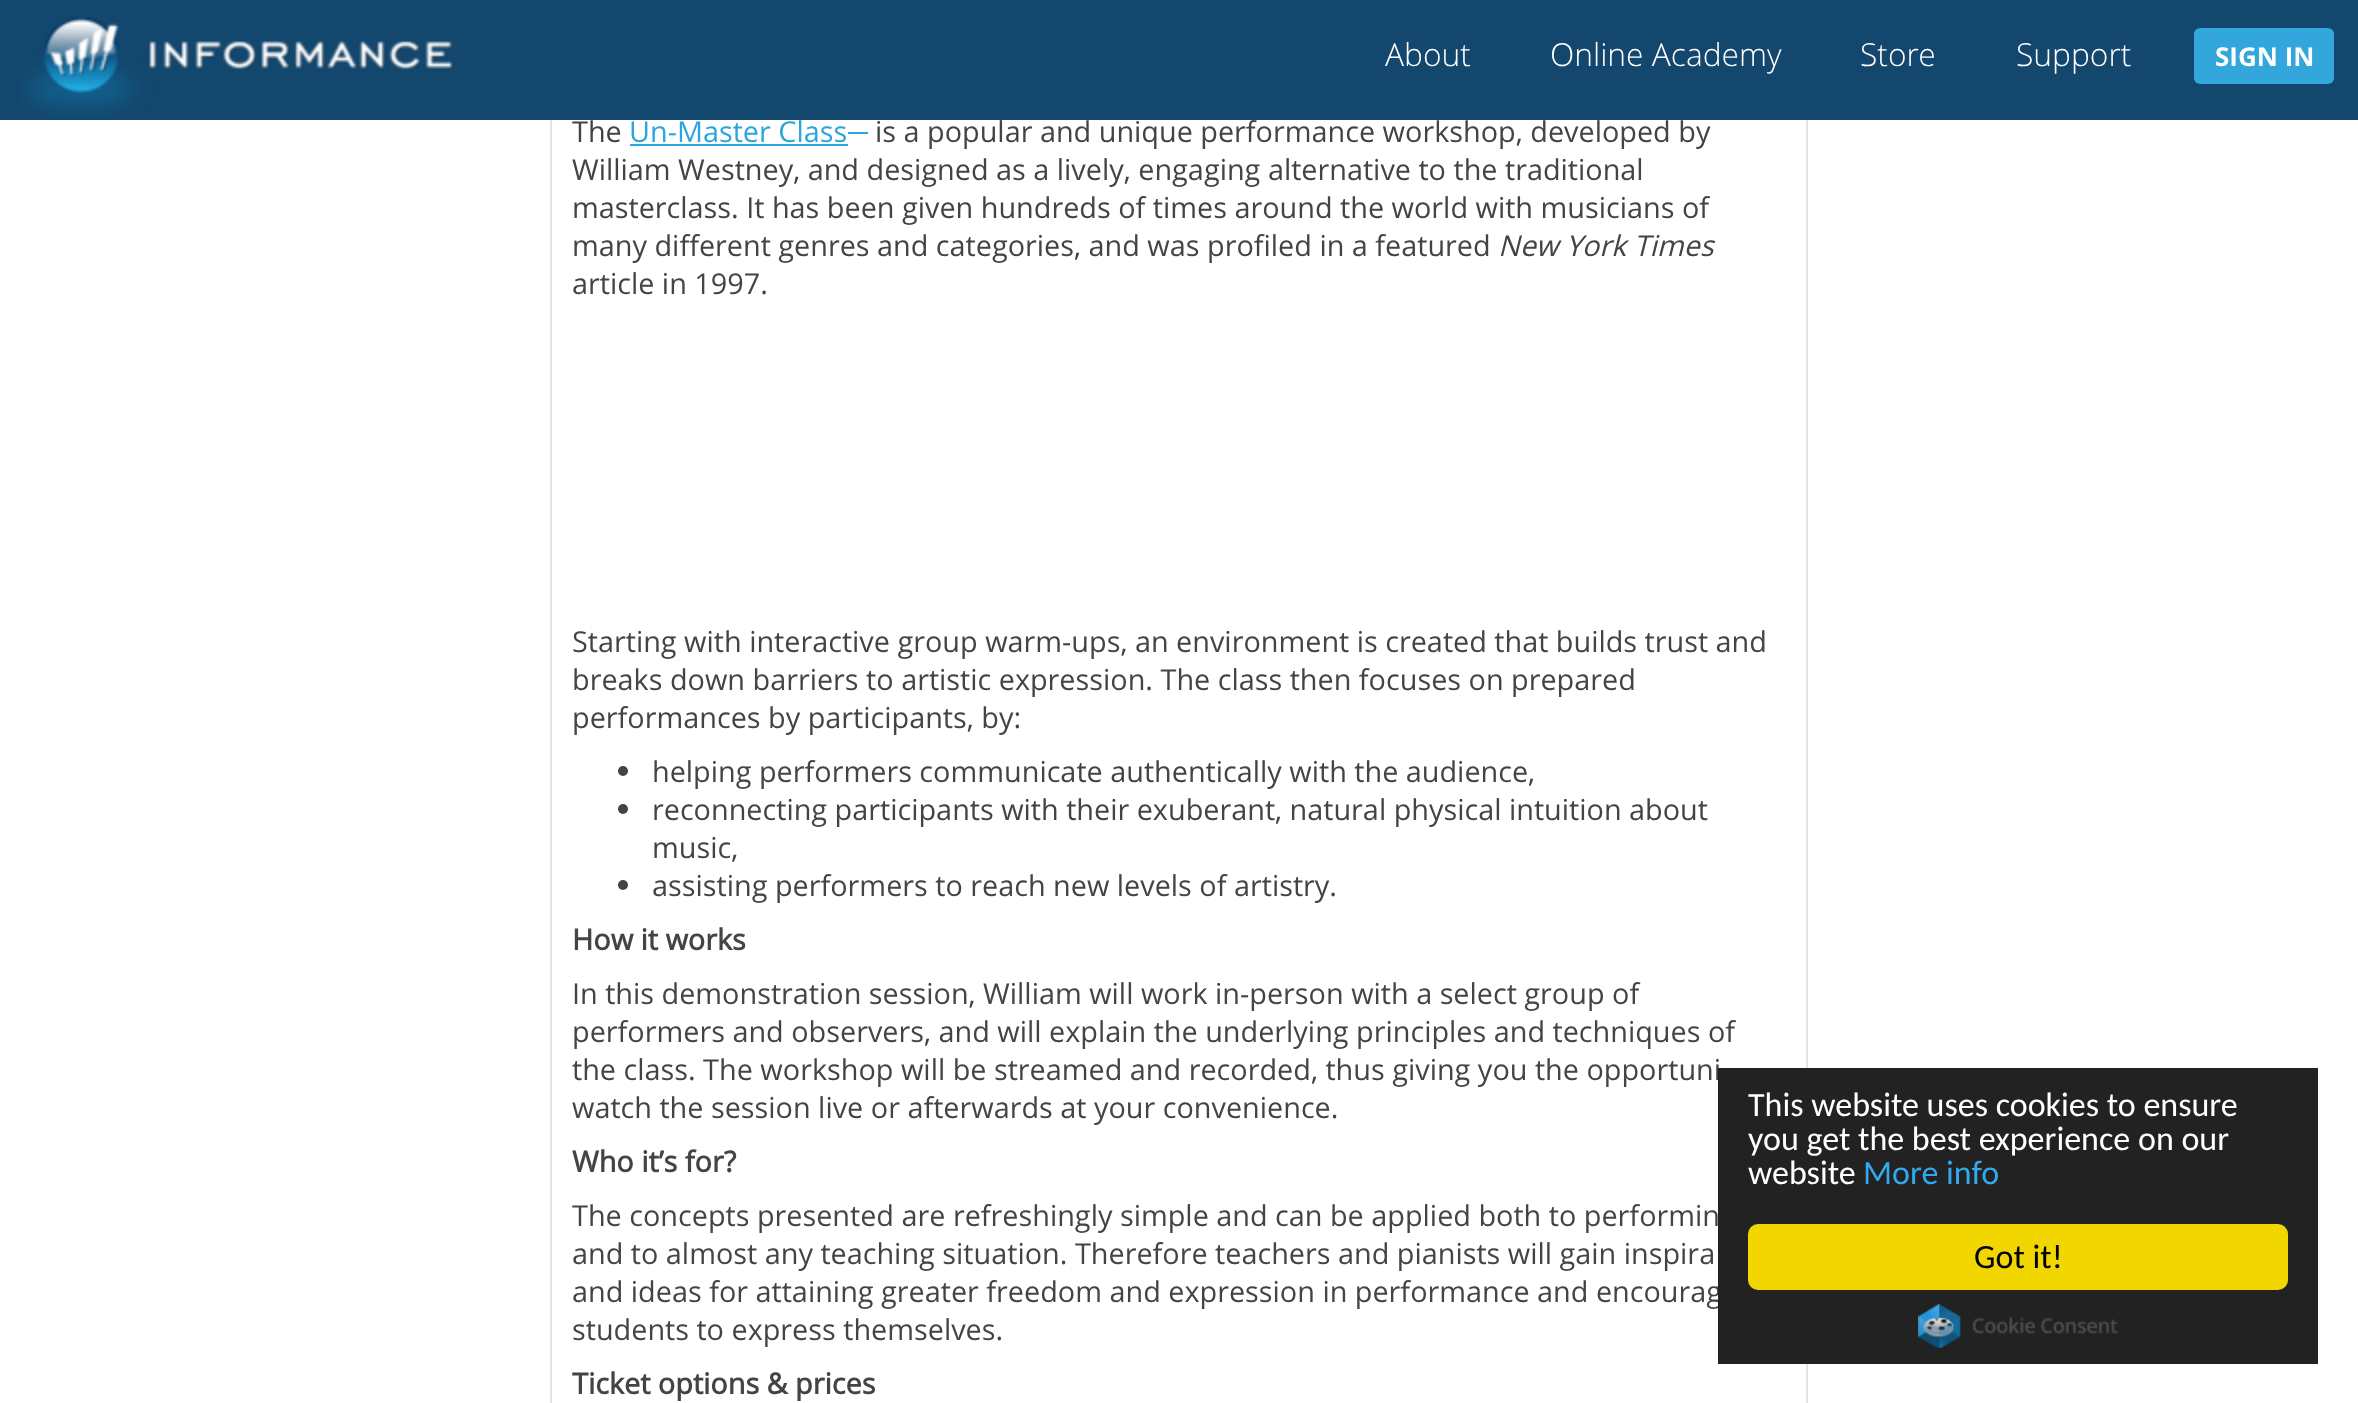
<svg xmlns="http://www.w3.org/2000/svg" width="2358" height="1403" viewBox="0 0 2358 1403">
  <rect width="100%" height="100%" fill="#ffffff"/>
  <rect x="551" y="-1" width="1256" height="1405" fill="none" stroke="#e4e4e4" stroke-width="2"/>
  <text x="875" y="142" font-family="Open Sans" font-size="28.8" fill="#444444">is a popular and unique performance workshop, developed by</text>
  <rect x="0" y="0" width="2358" height="120" fill="#14476e"/>
  <image x="20" y="17" width="434" height="101" href="img1.png"/>
  <text x="1385" y="66" font-family="Open Sans" font-size="31.75" font-weight="300" fill="#ffffff">About</text>
  <text x="1550" y="66" font-family="Open Sans" font-size="31.75" font-weight="300" fill="#ffffff">Online Academy</text>
  <text x="1860" y="66" font-family="Open Sans" font-size="31.75" font-weight="300" fill="#ffffff">Store</text>
  <text x="2016" y="66" font-family="Open Sans" font-size="31.75" font-weight="300" fill="#ffffff">Support</text>
  <rect x="2194" y="28" width="140" height="56" rx="6" fill="#33a6db"/>
  <text x="2215" y="66" font-family="'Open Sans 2'" font-size="26" font-weight="bold" fill="#ffffff">SIGN IN</text>
  <text x="572" y="142" font-family="Open Sans" font-size="28.8" fill="#444444">The</text>
  <text x="629" y="142" font-family="Open Sans" font-size="28.8" fill="#2aa5dd">Un-Master Class</text>
  <rect x="630" y="144" width="218" height="2" fill="#2aa5dd"/>
  <rect x="848" y="132" width="20" height="2" fill="#2aa5dd"/>
  <text x="572" y="180" font-family="Open Sans" font-size="28.8" fill="#444444">William Westney, and designed as a lively, engaging alternative to the traditional</text>
  <text x="572" y="218" font-family="Open Sans" font-size="28.8" fill="#444444">masterclass. It has been given hundreds of times around the world with musicians of</text>
  <text x="572" y="256" font-family="Open Sans" font-size="28.8" fill="#444444">many different genres and categories, and was profiled in a featured</text>
  <text x="1498" y="256" font-family="Open Sans" font-size="28.8" font-style="italic" fill="#444444">New York Times</text>
  <text x="572" y="294" font-family="Open Sans" font-size="28.8" fill="#444444">article in 1997.</text>
  <text x="572" y="652" font-family="Open Sans" font-size="28.8" fill="#444444">Starting with interactive group warm-ups, an environment is created that builds trust and</text>
  <text x="572" y="690" font-family="Open Sans" font-size="28.8" fill="#444444">breaks down barriers to artistic expression. The class then focuses on prepared</text>
  <text x="572" y="728" font-family="Open Sans" font-size="28.8" fill="#444444">performances by participants, by:</text>
  <circle cx="623" cy="771" r="5" fill="#444444"/>
  <text x="652" y="782" font-family="Open Sans" font-size="28.8" fill="#444444">helping performers communicate authentically with the audience,</text>
  <circle cx="623" cy="809" r="5" fill="#444444"/>
  <text x="652" y="820" font-family="Open Sans" font-size="28.8" fill="#444444">reconnecting participants with their exuberant, natural physical intuition about</text>
  <text x="652" y="858" font-family="Open Sans" font-size="28.8" fill="#444444">music,</text>
  <circle cx="623" cy="885" r="5" fill="#444444"/>
  <text x="652" y="896" font-family="Open Sans" font-size="28.8" fill="#444444">assisting performers to reach new levels of artistry.</text>
  <text x="572" y="950" font-family="Open Sans" font-size="28.8" font-weight="bold" fill="#444444">How it works</text>
  <text x="572" y="1004" font-family="Open Sans" font-size="28.8" fill="#444444">In this demonstration session, William will work in-person with a select group of</text>
  <text x="572" y="1042" font-family="Open Sans" font-size="28.8" fill="#444444">performers and observers, and will explain the underlying principles and techniques of</text>
  <text x="572" y="1080" font-family="Open Sans" font-size="28.8" fill="#444444">the class. The workshop will be streamed and recorded, thus giving you the opportuni</text>
  <text x="572" y="1118" font-family="Open Sans" font-size="28.8" fill="#444444">watch the session live or afterwards at your convenience.</text>
  <text x="572" y="1172" font-family="Open Sans" font-size="28.8" font-weight="bold" fill="#444444">Who it’s for?</text>
  <text x="572" y="1226" font-family="Open Sans" font-size="28.8" fill="#444444">The concepts presented are refreshingly simple and can be applied both to performin</text>
  <text x="572" y="1264" font-family="Open Sans" font-size="28.8" fill="#444444">and to almost any teaching situation. Therefore teachers and pianists will gain inspira</text>
  <text x="572" y="1302" font-family="Open Sans" font-size="28.8" fill="#444444">and ideas for attaining greater freedom and expression in performance and encourag</text>
  <text x="572" y="1340" font-family="Open Sans" font-size="28.8" fill="#444444">students to express themselves.</text>
  <text x="572" y="1394" font-family="Open Sans" font-size="28.8" font-weight="bold" fill="#444444">Ticket options &amp; prices</text>
  <rect x="1718" y="1068" width="600" height="296" fill="#222222"/>
  <text x="1748" y="1116" font-family="Carlito" font-size="34" fill="#ffffff">This website uses cookies to ensure</text>
  <text x="1748" y="1150" font-family="Carlito" font-size="34" fill="#ffffff">you get the best experience on our</text>
  <text x="1748" y="1184" font-family="Carlito" font-size="34" fill="#ffffff">website</text>
  <text x="1863" y="1184" font-family="Carlito" font-size="34" fill="#31a8f0">More info</text>
  <rect x="1748" y="1224" width="540" height="66" rx="10" fill="#f1d600"/>
  <text x="1974" y="1268" font-family="Carlito" font-size="34" fill="#000000">Got it!</text>
  <image x="1918" y="1304" width="200" height="44" href="img2.png"/>
</svg>
